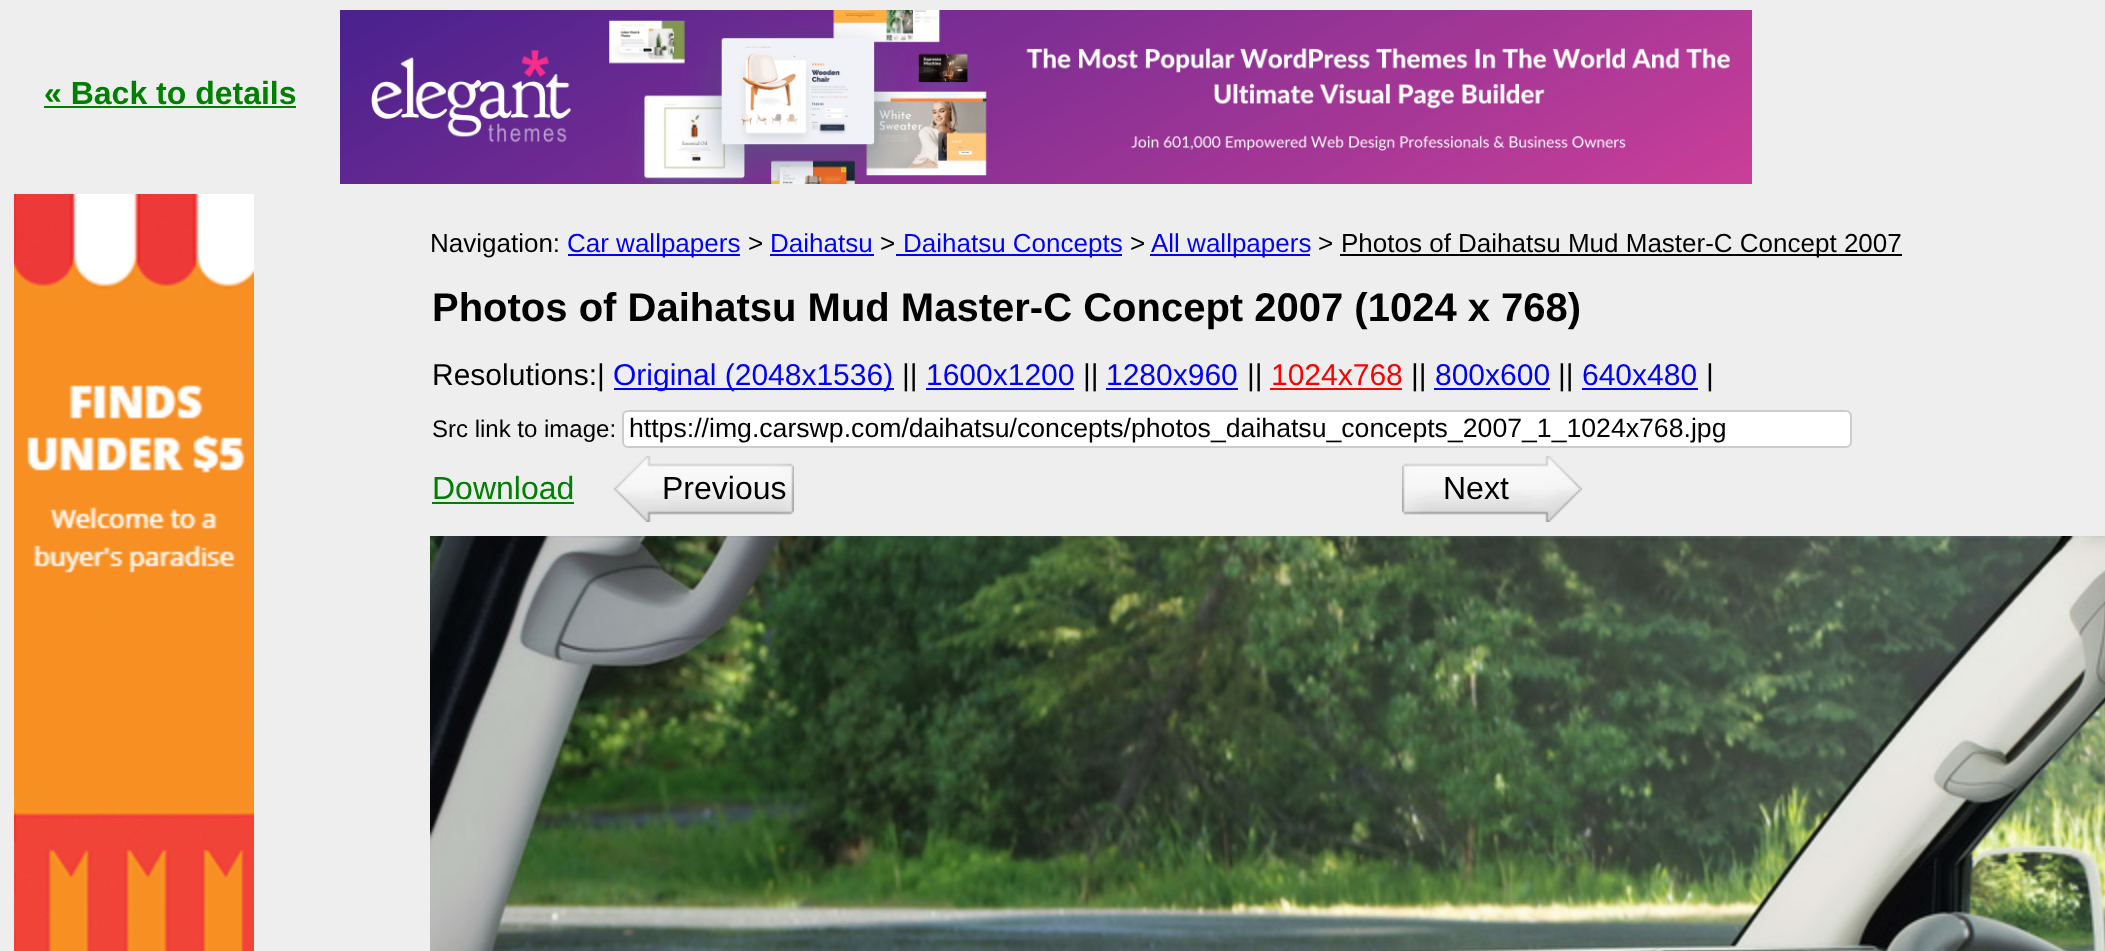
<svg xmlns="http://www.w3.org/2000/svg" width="2105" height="951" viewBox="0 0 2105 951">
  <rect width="100%" height="100%" fill="#eeeeee"/>
  <image x="340" y="10" width="1412" height="174" href="img1.png"/>
  <text x="44" y="104" font-family="Liberation Sans" font-size="32" font-weight="bold" fill="#008000">« Back to details</text>
  <rect x="44" y="106" width="252" height="2" fill="#008000"/>
  <image x="14" y="194" width="240" height="757" href="img2.png"/>
  <text x="430" y="252" font-family="Liberation Sans" font-size="26" fill="#000000">Navigation:</text>
  <rect x="568" y="254" width="172" height="2" fill="#0000ff"/>
  <text x="567" y="252" font-family="Liberation Sans" font-size="26" fill="#0000ff">Car wallpapers</text>
  <text x="748" y="252" font-family="Liberation Sans" font-size="26" fill="#000000">&gt;</text>
  <text x="770" y="252" font-family="Liberation Sans" font-size="26" fill="#0000ff">Daihatsu</text>
  <rect x="770" y="254" width="104" height="2" fill="#0000ff"/>
  <text x="880" y="252" font-family="Liberation Sans" font-size="26" fill="#000000">&gt;</text>
  <rect x="896" y="254" width="226" height="2" fill="#0000ff"/>
  <text x="903" y="252" font-family="Liberation Sans" font-size="26" fill="#0000ff">Daihatsu Concepts</text>
  <text x="1130" y="252" font-family="Liberation Sans" font-size="26" fill="#000000">&gt;</text>
  <rect x="1150" y="254" width="160" height="2" fill="#0000ff"/>
  <text x="1151" y="252" font-family="Liberation Sans" font-size="26" fill="#0000ff">All wallpapers</text>
  <text x="1318" y="252" font-family="Liberation Sans" font-size="26" fill="#000000">&gt;</text>
  <rect x="1340" y="254" width="562" height="2" fill="#000000"/>
  <text x="1341" y="252" font-family="Liberation Sans" font-size="26" fill="#000000">Photos of Daihatsu Mud Master-C Concept 2007</text>
  <text x="432" y="321" font-family="Liberation Sans" font-size="40" font-weight="bold" fill="#000000">Photos of Daihatsu Mud Master-C Concept 2007 (1024 x 768)</text>
  <text x="432" y="385" font-family="Liberation Sans" font-size="30" fill="#000000">Resolutions:|</text>
  <rect x="614" y="388" width="280" height="2" fill="#0000ff"/>
  <text x="613" y="385" font-family="Liberation Sans" font-size="30" fill="#0000ff">Original (2048x1536)</text>
  <text x="902" y="385" font-family="Liberation Sans" font-size="30" fill="#000000">||</text>
  <text x="926" y="385" font-family="Liberation Sans" font-size="30" fill="#0000ff">1600x1200</text>
  <rect x="926" y="388" width="148" height="2" fill="#0000ff"/>
  <text x="1083" y="385" font-family="Liberation Sans" font-size="30" fill="#000000">||</text>
  <text x="1106" y="385" font-family="Liberation Sans" font-size="30" fill="#0000ff">1280x960</text>
  <rect x="1106" y="388" width="132" height="2" fill="#0000ff"/>
  <text x="1247" y="385" font-family="Liberation Sans" font-size="30" fill="#000000">||</text>
  <text x="1271" y="385" font-family="Liberation Sans" font-size="30" fill="#ff0000">1024x768</text>
  <rect x="1270" y="388" width="132" height="2" fill="#ff0000"/>
  <text x="1411" y="385" font-family="Liberation Sans" font-size="30" fill="#000000">||</text>
  <text x="1435" y="385" font-family="Liberation Sans" font-size="30" fill="#0000ff">800x600</text>
  <rect x="1434" y="388" width="116" height="2" fill="#0000ff"/>
  <text x="1558" y="385" font-family="Liberation Sans" font-size="30" fill="#000000">||</text>
  <text x="1582" y="385" font-family="Liberation Sans" font-size="30" fill="#0000ff">640x480</text>
  <rect x="1582" y="388" width="116" height="2" fill="#0000ff"/>
  <text x="1706" y="385" font-family="Liberation Sans" font-size="30" fill="#000000">|</text>
  <text x="432" y="437" font-family="Liberation Sans" font-size="24" fill="#000000">Src link to image:</text>
  <rect x="623" y="411" width="1228" height="36" rx="5" fill="#ffffff" stroke="#cccccc" stroke-width="2"/>
  <text x="629" y="437" font-family="Liberation Sans" font-size="26.65" fill="#000000">https://img.carswp.com/daihatsu/concepts/photos_daihatsu_concepts_2007_1_1024x768.jpg</text>
  <text x="432" y="499" font-family="Liberation Sans" font-size="32" fill="#008000">Download</text>
  <rect x="432" y="502" width="142" height="2" fill="#008000"/>
  <image x="614" y="456" width="180" height="66" href="img3.png"/>
  <text x="662" y="499" font-family="Liberation Sans" font-size="32" fill="#000000">Previous</text>
  <image x="1402" y="456" width="180" height="66" href="img4.png"/>
  <text x="1443" y="499" font-family="Liberation Sans" font-size="32" fill="#000000">Next</text>
  <image x="430" y="536" width="1675" height="415" href="img5.png"/>
</svg>
